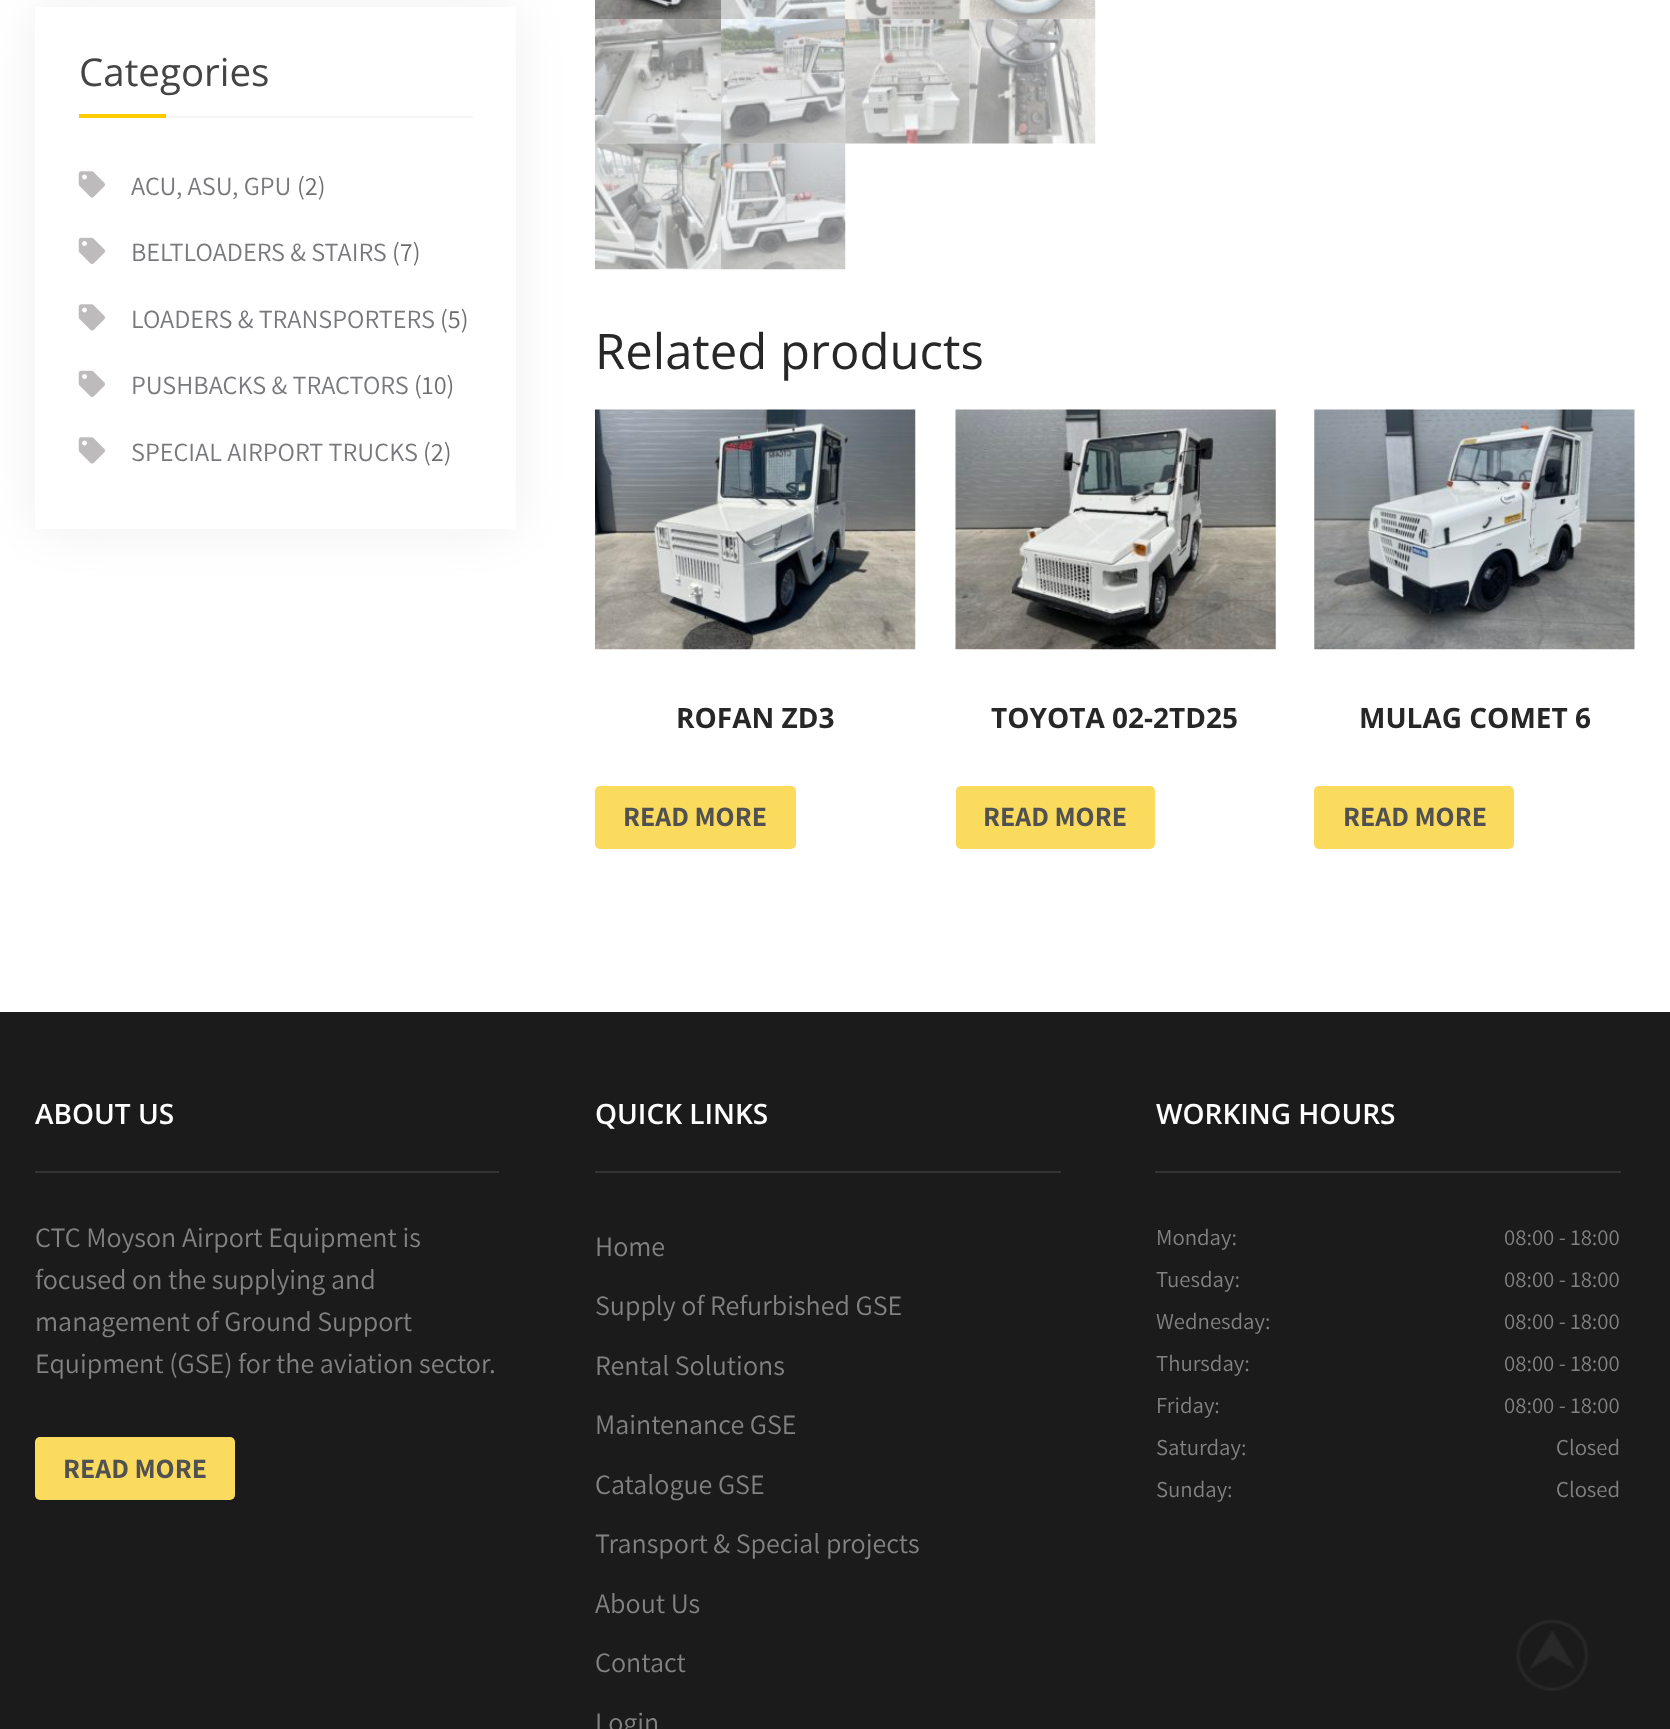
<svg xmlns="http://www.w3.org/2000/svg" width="1670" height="1729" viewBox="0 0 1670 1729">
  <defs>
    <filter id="blur1" x="-50%" y="-200%" width="200%" height="500%"><feGaussianBlur stdDeviation="27"/></filter>
  </defs>
  <rect width="100%" height="100%" fill="#ffffff"/>
  <rect x="35" y="7" width="481" height="522" fill="#efefef" filter="url(#blur1)"/>
  <rect x="35" y="7" width="481" height="522" fill="#ffffff"/>
  <rect x="166" y="116" width="307" height="2" fill="#f5f5f5"/>
  <text x="79" y="86" font-family="Open Sans" font-size="38.5" fill="#444444">Categories</text>
  <rect x="79" y="114" width="87" height="4" fill="#feca00"/>
  <image x="78" y="171" width="27" height="27" href="img1.png"/>
  <text x="131" y="195" font-family="Assistant" font-size="26.25" font-weight="200" fill="#78797c">ACU, ASU, GPU</text>
  <text x="297" y="195" font-family="Assistant" font-size="26.25" font-weight="200" fill="#6e6d6d">(2)</text>
  <image x="78" y="237" width="27" height="27" href="img2.png"/>
  <text x="131" y="261" font-family="Assistant" font-size="26.25" font-weight="200" fill="#78797c">BELTLOADERS &amp; STAIRS</text>
  <text x="392" y="261" font-family="Assistant" font-size="26.25" font-weight="200" fill="#6e6d6d">(7)</text>
  <image x="78" y="304" width="27" height="27" href="img1.png"/>
  <text x="131" y="328" font-family="Assistant" font-size="26.25" font-weight="200" fill="#78797c">LOADERS &amp; TRANSPORTERS</text>
  <text x="440" y="328" font-family="Assistant" font-size="26.25" font-weight="200" fill="#6e6d6d">(5)</text>
  <image x="78" y="370" width="27" height="27" href="img2.png"/>
  <text x="131" y="394" font-family="Assistant" font-size="26.25" font-weight="200" fill="#78797c">PUSHBACKS &amp; TRACTORS</text>
  <text x="414" y="394" font-family="Assistant" font-size="26.25" font-weight="200" fill="#6e6d6d">(10)</text>
  <image x="78" y="437" width="27" height="27" href="img1.png"/>
  <text x="131" y="461" font-family="Assistant" font-size="26.25" font-weight="200" fill="#78797c">SPECIAL AIRPORT TRUCKS</text>
  <text x="423" y="461" font-family="Assistant" font-size="26.25" font-weight="200" fill="#6e6d6d">(2)</text>
  <image x="595" y="0" width="126" height="20" href="img3.png"/>
  <image x="721" y="0" width="125" height="20" href="img4.png"/>
  <image x="845" y="0" width="125" height="20" href="img5.png"/>
  <image x="969" y="0" width="127" height="20" href="img6.png"/>
  <image x="595" y="19" width="126" height="125" href="img7.png"/>
  <image x="721" y="19" width="125" height="125" href="img8.png"/>
  <image x="845" y="19" width="125" height="125" href="img9.png"/>
  <image x="969" y="19" width="127" height="125" href="img10.png"/>
  <image x="595" y="143" width="126" height="127" href="img11.png"/>
  <image x="721" y="143" width="125" height="127" href="img12.png"/>
  <text x="595" y="369" font-family="Open Sans" font-size="49" fill="#272727">Related products</text>
  <image x="595" y="409" width="321" height="241" href="img13.png"/>
  <text x="676" y="728" font-family="Open Sans" font-size="28" font-weight="bold" fill="#272727">ROFAN ZD3</text>
  <rect x="595" y="786" width="201" height="63" rx="5" fill="#fbdb5e"/>
  <text x="623" y="826" font-family="Assistant" font-size="28" font-weight="bold" fill="#515151">READ MORE</text>
  <image x="955" y="409" width="321" height="241" href="img14.png"/>
  <text x="991" y="728" font-family="Open Sans" font-size="28" font-weight="bold" fill="#272727">TOYOTA 02-2TD25</text>
  <rect x="956" y="786" width="199" height="63" rx="5" fill="#fbdb5e"/>
  <text x="983" y="826" font-family="Assistant" font-size="28" font-weight="bold" fill="#515151">READ MORE</text>
  <image x="1314" y="409" width="321" height="241" href="img15.png"/>
  <text x="1359" y="728" font-family="Open Sans" font-size="28" font-weight="bold" fill="#272727">MULAG COMET 6</text>
  <rect x="1314" y="786" width="200" height="63" rx="5" fill="#fbdb5e"/>
  <text x="1343" y="826" font-family="Assistant" font-size="28" font-weight="bold" fill="#515151">READ MORE</text>
  <rect x="0" y="1012" width="1670" height="717" fill="#1b1b1b"/>
  <rect x="35" y="1171" width="464" height="2" fill="#343434"/>
  <text x="35" y="1124" font-family="Open Sans" font-size="28" font-weight="600" fill="#ffffff">ABOUT US</text>
  <text x="35" y="1247" font-family="Assistant" font-size="28" font-weight="200" fill="#828282">CTC Moyson Airport Equipment is</text>
  <text x="35" y="1289" font-family="Assistant" font-size="28" font-weight="200" fill="#828282">focused on the supplying and</text>
  <text x="35" y="1331" font-family="Assistant" font-size="28" font-weight="200" fill="#828282">management of Ground Support</text>
  <text x="35" y="1373" font-family="Assistant" font-size="28" font-weight="200" fill="#828282">Equipment (GSE) for the aviation sector.</text>
  <rect x="35" y="1437" width="200" height="63" rx="5" fill="#fbdb5e"/>
  <text x="63" y="1478" font-family="Assistant" font-size="28" font-weight="bold" fill="#515151">READ MORE</text>
  <rect x="595" y="1171" width="466" height="2" fill="#343434"/>
  <text x="595" y="1124" font-family="Open Sans" font-size="28" font-weight="600" fill="#ffffff">QUICK LINKS</text>
  <text x="595" y="1256" font-family="Assistant" font-size="28" font-weight="200" fill="#828282">Home</text>
  <text x="595" y="1315" font-family="Assistant" font-size="28" font-weight="200" fill="#828282">Supply of Refurbished GSE</text>
  <text x="595" y="1375" font-family="Assistant" font-size="28" font-weight="200" fill="#828282">Rental Solutions</text>
  <text x="595" y="1434" font-family="Assistant" font-size="28" font-weight="200" fill="#828282">Maintenance GSE</text>
  <text x="595" y="1494" font-family="Assistant" font-size="28" font-weight="200" fill="#828282">Catalogue GSE</text>
  <text x="595" y="1553" font-family="Assistant" font-size="28" font-weight="200" fill="#828282">Transport &amp; Special projects</text>
  <text x="595" y="1613" font-family="Assistant" font-size="28" font-weight="200" fill="#828282">About Us</text>
  <text x="595" y="1672" font-family="Assistant" font-size="28" font-weight="200" fill="#828282">Contact</text>
  <text x="595" y="1732" font-family="Assistant" font-size="28" font-weight="200" fill="#828282">Login</text>
  <rect x="1155" y="1171" width="466" height="2" fill="#343434"/>
  <text x="1156" y="1124" font-family="Open Sans" font-size="28" font-weight="600" fill="#ffffff">WORKING HOURS</text>
  <text x="1156" y="1245" font-family="Assistant" font-size="22.75" font-weight="200" fill="#828282">Monday:</text>
  <text x="1504" y="1245" font-family="Assistant" font-size="22.75" font-weight="200" fill="#828282">08:00 - 18:00</text>
  <text x="1156" y="1287" font-family="Assistant" font-size="22.75" font-weight="200" fill="#828282">Tuesday:</text>
  <text x="1504" y="1287" font-family="Assistant" font-size="22.75" font-weight="200" fill="#828282">08:00 - 18:00</text>
  <text x="1156" y="1329" font-family="Assistant" font-size="22.75" font-weight="200" fill="#828282">Wednesday:</text>
  <text x="1504" y="1329" font-family="Assistant" font-size="22.75" font-weight="200" fill="#828282">08:00 - 18:00</text>
  <text x="1156" y="1371" font-family="Assistant" font-size="22.75" font-weight="200" fill="#828282">Thursday:</text>
  <text x="1504" y="1371" font-family="Assistant" font-size="22.75" font-weight="200" fill="#828282">08:00 - 18:00</text>
  <text x="1156" y="1413" font-family="Assistant" font-size="22.75" font-weight="200" fill="#828282">Friday:</text>
  <text x="1504" y="1413" font-family="Assistant" font-size="22.75" font-weight="200" fill="#828282">08:00 - 18:00</text>
  <text x="1156" y="1455" font-family="Assistant" font-size="22.75" font-weight="200" fill="#828282">Saturday:</text>
  <text x="1556" y="1455" font-family="Assistant" font-size="22.75" font-weight="200" fill="#828282">Closed</text>
  <text x="1156" y="1497" font-family="Assistant" font-size="22.75" font-weight="200" fill="#828282">Sunday:</text>
  <text x="1556" y="1497" font-family="Assistant" font-size="22.75" font-weight="200" fill="#828282">Closed</text>
  <image x="1516" y="1619" width="73" height="72" href="img16.png"/>
</svg>
